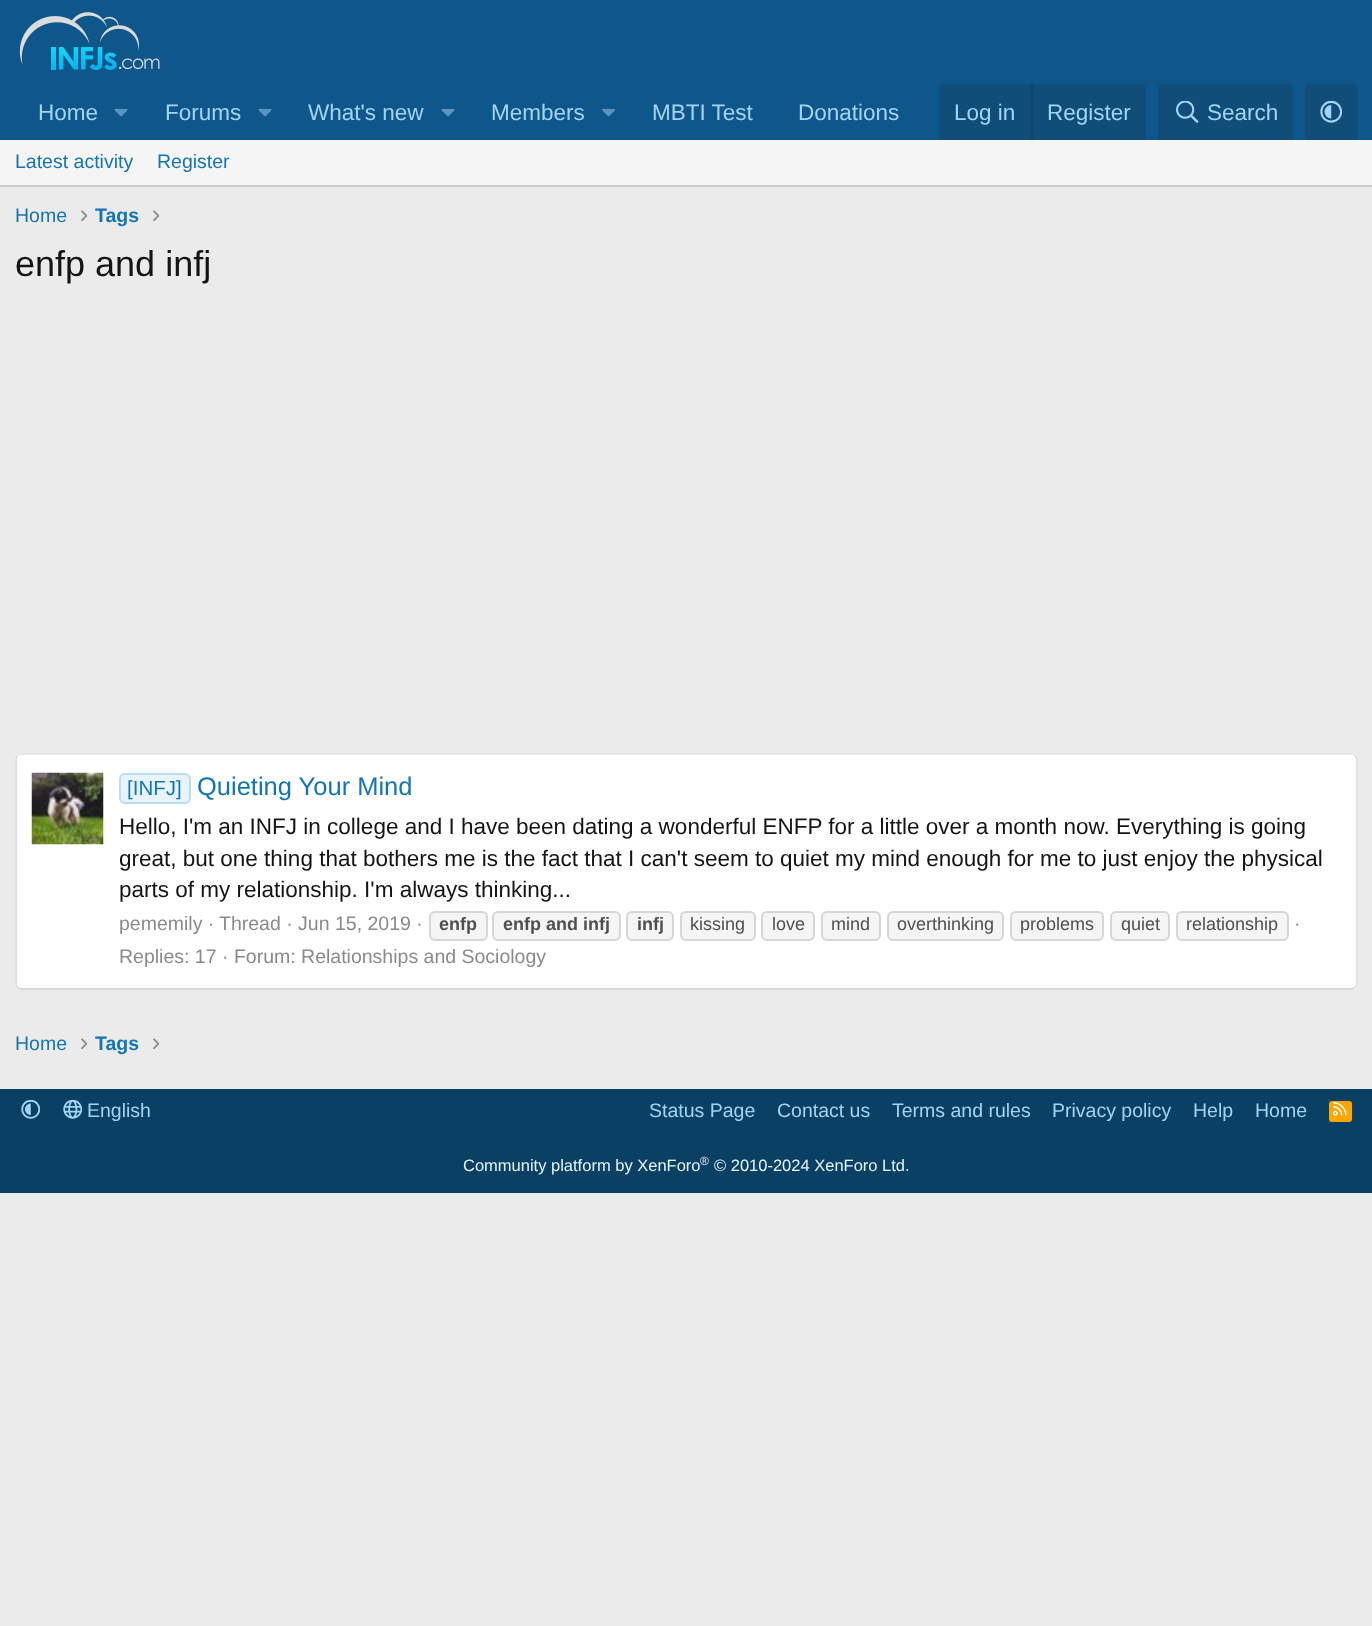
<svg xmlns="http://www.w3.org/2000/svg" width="1372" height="1626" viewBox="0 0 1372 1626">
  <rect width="100%" height="100%" fill="#ebebeb"/>
  <rect x="0" y="0" width="1372" height="140" fill="#0f578a"/>
  <image x="19" y="12" width="141" height="59" href="img1.png"/>
  <text x="38" y="120" font-family="Liberation Sans" font-size="22.5" fill="#a3d4f5">Home</text>
  <image x="114" y="108" width="14" height="9" href="img2.png"/>
  <text x="165" y="120" font-family="Liberation Sans" font-size="22.5" fill="#a3d4f5">Forums</text>
  <image x="258" y="108" width="14" height="9" href="img2.png"/>
  <text x="308" y="120" font-family="Liberation Sans" font-size="22.5" fill="#a3d4f5">What's new</text>
  <image x="441" y="108" width="14" height="9" href="img2.png"/>
  <text x="491" y="120" font-family="Liberation Sans" font-size="22.5" fill="#a3d4f5">Members</text>
  <image x="602" y="108" width="13" height="9" href="img3.png"/>
  <text x="652" y="120" font-family="Liberation Sans" font-size="22.5" fill="#a3d4f5">MBTI Test</text>
  <text x="798" y="120" font-family="Liberation Sans" font-size="22.5" fill="#a3d4f5">Donations</text>
  <path d="M945 84H1140C1143.5 84 1146 86.5 1146 90V140H939V90C939 86.5 941.5 84 945 84Z" fill="#104d78"/>
  <text x="954" y="120" font-family="Liberation Sans" font-size="22.5" fill="#a3d4f5">Log in</text>
  <rect x="1031" y="84" width="2" height="56" fill="#114469"/>
  <text x="1047" y="120" font-family="Liberation Sans" font-size="22.5" fill="#a3d4f5">Register</text>
  <path d="M1164 84H1287C1290.5 84 1293 86.5 1293 90V140H1158V90C1158 86.5 1160.5 84 1164 84Z" fill="#104d78"/>
  <image x="1176" y="101" width="23" height="22" href="img4.png"/>
  <text x="1207" y="120" font-family="Liberation Sans" font-size="22.5" fill="#a3d4f5">Search</text>
  <path d="M1311 84H1352C1355.5 84 1358 86.5 1358 90V140H1305V90C1305 86.5 1307.5 84 1311 84Z" fill="#104d78"/>
  <image x="1320" y="100" width="23" height="23" href="img5.png"/>
  <rect x="0" y="140" width="1372" height="45" fill="#f5f5f5"/>
  <rect x="0" y="185" width="1372" height="2" fill="#cccccc"/>
  <text x="15" y="168" font-family="Liberation Sans" font-size="19.5" fill="#1474b8">Latest activity</text>
  <text x="157" y="168" font-family="Liberation Sans" font-size="19.5" fill="#1474b8">Register</text>
  <text x="15" y="222" font-family="Liberation Sans" font-size="19.5" fill="#1474b8">Home</text>
  <image x="81" y="210" width="6" height="12" href="img6.png"/>
  <text x="95" y="222" font-family="Liberation Sans" font-size="19.5" font-weight="bold" fill="#1474b8">Tags</text>
  <image x="153" y="210" width="6" height="12" href="img6.png"/>
  <text x="15" y="276" font-family="Liberation Sans" font-size="36" fill="#141414">enfp and infj</text>
  <rect x="15" y="753" width="1343" height="237" rx="6" fill="#ffffff"/>
  <path d="M17.5 755.5C18.5 754.5 19.5 754 21 754H1351.5C1353 754 1354 754.5 1355 755.5" fill="none" stroke="#e0e0e0" stroke-width="1.5"/>
  <path d="M1355 755.5C1356 756.5 1357 757.5 1357 759V984C1357 985.5 1356 986.5 1355 987.5" fill="none" stroke="#d6d6d6" stroke-width="1.5"/>
  <path d="M1355 987.5C1354 988.5 1353 989 1351.5 989H21C19.5 989 18.5 988.5 17.5 987.5" fill="none" stroke="#cccccc" stroke-width="1.5"/>
  <path d="M17.5 987.5C16.5 986.5 16 985.5 16 984V759C16 757.5 16.5 756.5 17.5 755.5" fill="none" stroke="#d6d6d6" stroke-width="1.5"/>
  <image x="31" y="772" width="73" height="73" href="img7.png"/>
  <rect x="120" y="774" width="70" height="29" rx="5" fill="#e8f4fc" stroke="#baddf7" stroke-width="2"/>
  <text x="127" y="795" font-family="Liberation Sans" font-size="20.5" fill="#1474b8">[INFJ]</text>
  <text x="197" y="795" font-family="Liberation Sans" font-size="25.5" fill="#1474b8">Quieting Your Mind</text>
  <text x="119" y="834" font-family="Liberation Sans" font-size="22.5" fill="#141414">Hello, I'm an INFJ in college and I have been dating a wonderful ENFP for a little over a month now. Everything is going</text>
  <text x="119" y="866" font-family="Liberation Sans" font-size="22.5" fill="#141414">great, but one thing that bothers me is the fact that I can't seem to quiet my mind enough for me to just enjoy the physical</text>
  <text x="119" y="897" font-family="Liberation Sans" font-size="22.5" fill="#141414">parts of my relationship. I'm always thinking...</text>
  <text x="119" y="930" font-family="Liberation Sans" font-size="19.5" fill="#8a8a8a">pememily ·</text>
  <text x="219" y="930" font-family="Liberation Sans" font-size="19.5" fill="#8a8a8a">Thread · Jun 15, 2019 ·</text>
  <rect x="430" y="912" width="57" height="28" rx="5" fill="#f5f5f5" stroke="#d6d6d6" stroke-width="2"/>
  <text x="439" y="930" font-family="Liberation Sans" font-size="18" font-weight="bold" fill="#4f4f4f">enfp</text>
  <rect x="493" y="912" width="127" height="28" rx="5" fill="#f5f5f5" stroke="#d6d6d6" stroke-width="2"/>
  <text x="503" y="930" font-family="Liberation Sans" font-size="18" font-weight="bold" fill="#4f4f4f">enfp and infj</text>
  <rect x="627" y="912" width="46" height="28" rx="5" fill="#f5f5f5" stroke="#d6d6d6" stroke-width="2"/>
  <text x="637" y="930" font-family="Liberation Sans" font-size="18" font-weight="bold" fill="#4f4f4f">infj</text>
  <rect x="681" y="912" width="74" height="28" rx="5" fill="#f5f5f5" stroke="#d6d6d6" stroke-width="2"/>
  <text x="690" y="930" font-family="Liberation Sans" font-size="18" fill="#4f4f4f">kissing</text>
  <rect x="762" y="912" width="52" height="28" rx="5" fill="#f5f5f5" stroke="#d6d6d6" stroke-width="2"/>
  <text x="772" y="930" font-family="Liberation Sans" font-size="18" fill="#4f4f4f">love</text>
  <rect x="822" y="912" width="58" height="28" rx="5" fill="#f5f5f5" stroke="#d6d6d6" stroke-width="2"/>
  <text x="831" y="930" font-family="Liberation Sans" font-size="18" fill="#4f4f4f">mind</text>
  <rect x="888" y="912" width="115" height="28" rx="5" fill="#f5f5f5" stroke="#d6d6d6" stroke-width="2"/>
  <text x="897" y="930" font-family="Liberation Sans" font-size="18" fill="#4f4f4f">overthinking</text>
  <rect x="1011" y="912" width="92" height="28" rx="5" fill="#f5f5f5" stroke="#d6d6d6" stroke-width="2"/>
  <text x="1020" y="930" font-family="Liberation Sans" font-size="18" fill="#4f4f4f">problems</text>
  <rect x="1111" y="912" width="58" height="28" rx="5" fill="#f5f5f5" stroke="#d6d6d6" stroke-width="2"/>
  <text x="1121" y="930" font-family="Liberation Sans" font-size="18" fill="#4f4f4f">quiet</text>
  <rect x="1177" y="912" width="111" height="28" rx="5" fill="#f5f5f5" stroke="#d6d6d6" stroke-width="2"/>
  <text x="1186" y="930" font-family="Liberation Sans" font-size="18" fill="#4f4f4f">relationship</text>
  <text x="1294" y="930" font-family="Liberation Sans" font-size="19.5" fill="#8a8a8a">·</text>
  <text x="119" y="963" font-family="Liberation Sans" font-size="19.5" fill="#8a8a8a">Replies: 17 · Forum: Relationships and Sociology</text>
  <text x="15" y="1050" font-family="Liberation Sans" font-size="19.5" fill="#1474b8">Home</text>
  <image x="81" y="1038" width="6" height="12" href="img6.png"/>
  <text x="95" y="1050" font-family="Liberation Sans" font-size="19.5" font-weight="bold" fill="#1474b8">Tags</text>
  <image x="153" y="1038" width="6" height="12" href="img6.png"/>
  <rect x="0" y="1089" width="1372" height="104" fill="#0b4065"/>
  <image x="21" y="1099" width="20" height="20" href="img8.png"/>
  <image x="63" y="1099" width="20" height="20" href="img9.png"/>
  <text x="87" y="1117" font-family="Liberation Sans" font-size="19.5" fill="#a3d4f5">English</text>
  <text x="649" y="1117" font-family="Liberation Sans" font-size="19.5" fill="#a3d4f5">Status Page</text>
  <text x="777" y="1117" font-family="Liberation Sans" font-size="19.5" fill="#a3d4f5">Contact us</text>
  <text x="892" y="1117" font-family="Liberation Sans" font-size="19.5" fill="#a3d4f5">Terms and rules</text>
  <text x="1052" y="1117" font-family="Liberation Sans" font-size="19.5" fill="#a3d4f5">Privacy policy</text>
  <text x="1193" y="1117" font-family="Liberation Sans" font-size="19.5" fill="#a3d4f5">Help</text>
  <text x="1255" y="1117" font-family="Liberation Sans" font-size="19.5" fill="#a3d4f5">Home</text>
  <rect x="1329" y="1101" width="23" height="21" rx="3" fill="#ffa500"/>
  <image x="1333" y="1102" width="14" height="14" href="img10.png"/>
  <text x="463" y="1171" font-family="Liberation Sans" font-size="16.5" fill="#e8f4fc">Community platform by XenForo</text>
  <text x="700" y="1165" font-family="Liberation Sans" font-size="12" fill="#e8f4fc">®</text>
  <text x="714" y="1171" font-family="Liberation Sans" font-size="16.5" fill="#e8f4fc">© 2010-2024 XenForo Ltd.</text>
</svg>
